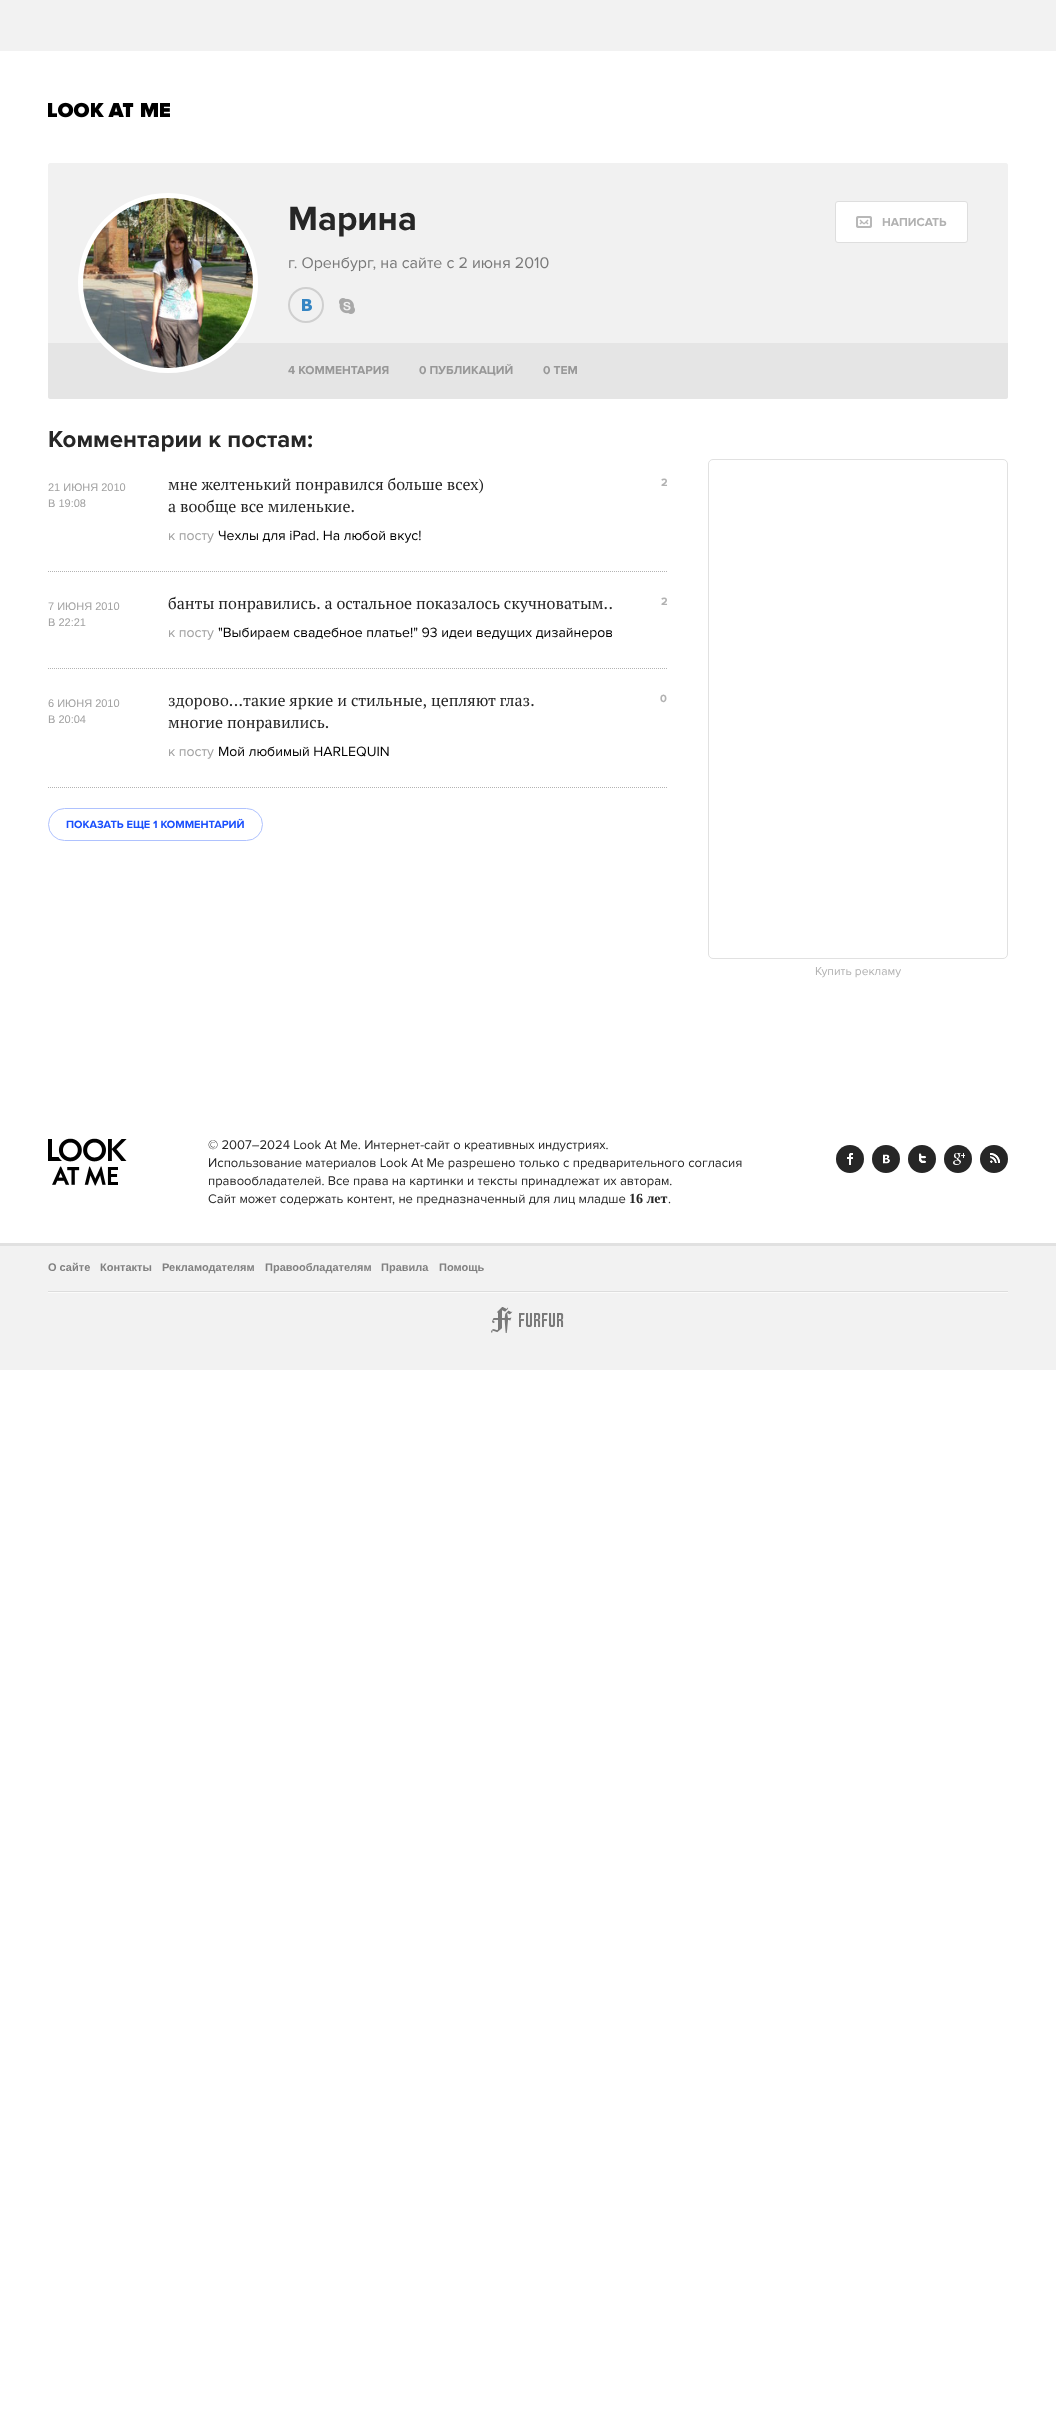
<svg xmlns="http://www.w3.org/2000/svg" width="1056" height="2429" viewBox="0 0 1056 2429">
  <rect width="100%" height="100%" fill="#ffffff"/>
  <rect x="0" y="0" width="1056" height="51" fill="#f2f2f2"/>
  <image x="48" y="102" width="122" height="16" href="img1.png"/>
  <path d="M50 163H1006C1007 163 1008 164 1008 165V343H48V165C48 164 49 163 50 163Z" fill="#f1f1f1"/>
  <path d="M48 343H1008V397C1008 398 1007 399 1006 399H50C49 399 48 398 48 397Z" fill="#e5e5e5"/>
  <circle cx="168" cy="283" r="87.5" fill="#ffffff" stroke="#ffffff" stroke-width="5"/>
  <image x="83" y="198" width="170" height="170" href="img2.png"/>
  <text x="288" y="230" font-family="Proxima Nova" font-size="35" font-weight="bold" fill="#262626">Марина</text>
  <rect x="835.5" y="201.5" width="132" height="41" rx="2.5" fill="#ffffff" stroke="#dedede"/>
  <image x="856" y="216" width="16" height="12" href="img3.png"/>
  <text x="882" y="226" font-family="Proxima Nova" font-size="12" font-weight="bold" fill="#b2b2b2">НАПИСАТЬ</text>
  <text x="288" y="268" font-family="Proxima Nova" font-size="16" fill="#797979">г. Оренбург, на сайте с 2 июня 2010</text>
  <circle cx="306" cy="305" r="17" fill="none" stroke="#cfcfcf" stroke-width="2"/>
  <image x="302" y="299" width="10" height="12" href="img4.png"/>
  <image x="339" y="298" width="16" height="16" href="img5.png"/>
  <text x="288" y="374" font-family="Proxima Nova" font-size="12" font-weight="bold" fill="#989898">4 КОММЕНТАРИЯ</text>
  <text x="419" y="374" font-family="Proxima Nova" font-size="12" font-weight="bold" fill="#989898">0 ПУБЛИКАЦИЙ</text>
  <text x="543" y="374" font-family="Proxima Nova" font-size="12" font-weight="bold" fill="#989898">0 ТЕМ</text>
  <text x="48" y="447" font-family="Proxima Nova" font-size="24" font-weight="bold" fill="#262626">Комментарии к постам:</text>
  <path d="M48 571.5H668" fill="none" stroke="#b3b3b3" stroke-dasharray="1 1"/>
  <text x="168" y="490" font-family="PT Serif" font-size="16" fill="#262626">мне желтенький понравился больше всех)</text>
  <text x="168" y="512" font-family="PT Serif" font-size="16" fill="#262626">а вообще все миленькие.</text>
  <text x="661" y="486" font-family="Proxima Nova" font-size="11" font-weight="bold" letter-spacing="1" fill="#b2b2b2">2</text>
  <text x="48" y="491" font-family="Liberation Sans" font-size="11" fill="#a1a1a1">21 ИЮНЯ 2010</text>
  <text x="48" y="507" font-family="Liberation Sans" font-size="11" fill="#a1a1a1">В 19:08</text>
  <text x="168" y="540" font-family="Proxima Nova" font-size="14" fill="#a1a1a1">к посту</text>
  <text x="218" y="540" font-family="Proxima Nova" font-size="14" fill="#000000">Чехлы для iPad. На любой вкус!</text>
  <path d="M48 668.5H668" fill="none" stroke="#b3b3b3" stroke-dasharray="1 1"/>
  <text x="168" y="609" font-family="PT Serif" font-size="16" fill="#262626">банты понравились. а остальное показалось скучноватым..</text>
  <text x="661" y="605" font-family="Proxima Nova" font-size="11" font-weight="bold" letter-spacing="1" fill="#b2b2b2">2</text>
  <text x="48" y="610" font-family="Liberation Sans" font-size="11" fill="#a1a1a1">7 ИЮНЯ 2010</text>
  <text x="48" y="626" font-family="Liberation Sans" font-size="11" fill="#a1a1a1">В 22:21</text>
  <text x="168" y="637" font-family="Proxima Nova" font-size="14" fill="#a1a1a1">к посту</text>
  <text x="218" y="637" font-family="Proxima Nova" font-size="14" fill="#000000">"Выбираем свадебное платье!" 93 идеи ведущих дизайнеров</text>
  <path d="M48 787.5H668" fill="none" stroke="#b3b3b3" stroke-dasharray="1 1"/>
  <text x="48" y="707" font-family="Liberation Sans" font-size="11" fill="#a1a1a1">6 ИЮНЯ 2010</text>
  <text x="48" y="723" font-family="Liberation Sans" font-size="11" fill="#a1a1a1">В 20:04</text>
  <text x="168" y="706" font-family="PT Serif" font-size="16" fill="#262626">здорово...такие яркие и стильные, цепляют глаз.</text>
  <text x="168" y="728" font-family="PT Serif" font-size="16" fill="#262626">многие понравились.</text>
  <text x="660" y="702" font-family="Proxima Nova" font-size="11" font-weight="bold" letter-spacing="1" fill="#b2b2b2">0</text>
  <text x="168" y="756" font-family="Proxima Nova" font-size="14" fill="#a1a1a1">к посту</text>
  <text x="218" y="756" font-family="Proxima Nova" font-size="14" fill="#000000">Мой любимый HARLEQUIN</text>
  <rect x="48.5" y="808.5" width="214" height="32" rx="16" fill="none" stroke="#afc2fe"/>
  <text x="66" y="828" font-family="Proxima Nova" font-size="11" font-weight="bold" fill="#1b50fd">ПОКАЗАТЬ ЕЩЕ 1 КОММЕНТАРИЙ</text>
  <rect x="708.5" y="459.5" width="299" height="499" rx="4.5" fill="none" stroke="#e1e1e1"/>
  <text x="815" y="975" font-family="Proxima Nova" font-size="12" fill="#b2b2b2">Купить рекламу</text>
  <image x="48" y="1138" width="79" height="48" href="img6.png"/>
  <text x="208" y="1149" font-family="Proxima Nova" font-size="13" fill="#262626">© 2007–2024 Look At Me. Интернет-сайт о креативных индустриях.</text>
  <text x="208" y="1167" font-family="Proxima Nova" font-size="13" fill="#262626">Использование материалов Look At Me разрешено только с предварительного согласия</text>
  <text x="208" y="1185" font-family="Proxima Nova" font-size="13" fill="#262626">правообладателей. Все права на картинки и тексты принадлежат их авторам.</text>
  <text x="208" y="1203" font-family="Proxima Nova" font-size="13" fill="#262626">Сайт может содержать контент, не предназначенный для лиц младше</text>
  <text x="629" y="1203" font-family="Liberation Serif" font-size="14" font-weight="bold" fill="#262626">16 лет</text>
  <text x="668" y="1203" font-family="Proxima Nova" font-size="13" fill="#262626">.</text>
  <circle cx="850" cy="1159" r="14" fill="#262626"/>
  <image x="847" y="1153" width="6" height="12" href="img7.png"/>
  <circle cx="886" cy="1159" r="14" fill="#262626"/>
  <image x="883" y="1154" width="7" height="10" href="img8.png"/>
  <circle cx="922" cy="1159" r="14" fill="#262626"/>
  <image x="919" y="1153" width="7" height="10" href="img9.png"/>
  <circle cx="958" cy="1159" r="14" fill="#262626"/>
  <image x="953" y="1153" width="12" height="12" href="img10.png"/>
  <circle cx="994" cy="1159" r="14" fill="#262626"/>
  <image x="990" y="1153" width="10" height="10" href="img11.png"/>
  <rect x="0" y="1246" width="1056" height="124" fill="#f2f2f2"/>
  <rect x="0" y="1243" width="1056" height="3" fill="#e1e1e1"/>
  <rect x="48" y="1292" width="960" height="1" fill="#fbfbfa"/>
  <text x="48" y="1271" font-family="Liberation Sans" font-size="11" font-weight="bold" fill="#808080">О сайте</text>
  <text x="100" y="1271" font-family="Liberation Sans" font-size="11" font-weight="bold" fill="#808080">Контакты</text>
  <text x="162" y="1271" font-family="Liberation Sans" font-size="11" font-weight="bold" fill="#808080">Рекламодателям</text>
  <text x="265" y="1271" font-family="Liberation Sans" font-size="11" font-weight="bold" fill="#808080">Правообладателям</text>
  <text x="381" y="1271" font-family="Liberation Sans" font-size="11" font-weight="bold" fill="#808080">Правила</text>
  <text x="439" y="1271" font-family="Liberation Sans" font-size="11" font-weight="bold" fill="#808080">Помощь</text>
  <rect x="48" y="1291" width="960" height="1" fill="#dddddd"/>
  <image x="491" y="1307" width="73" height="26" href="img12.png"/>
</svg>
